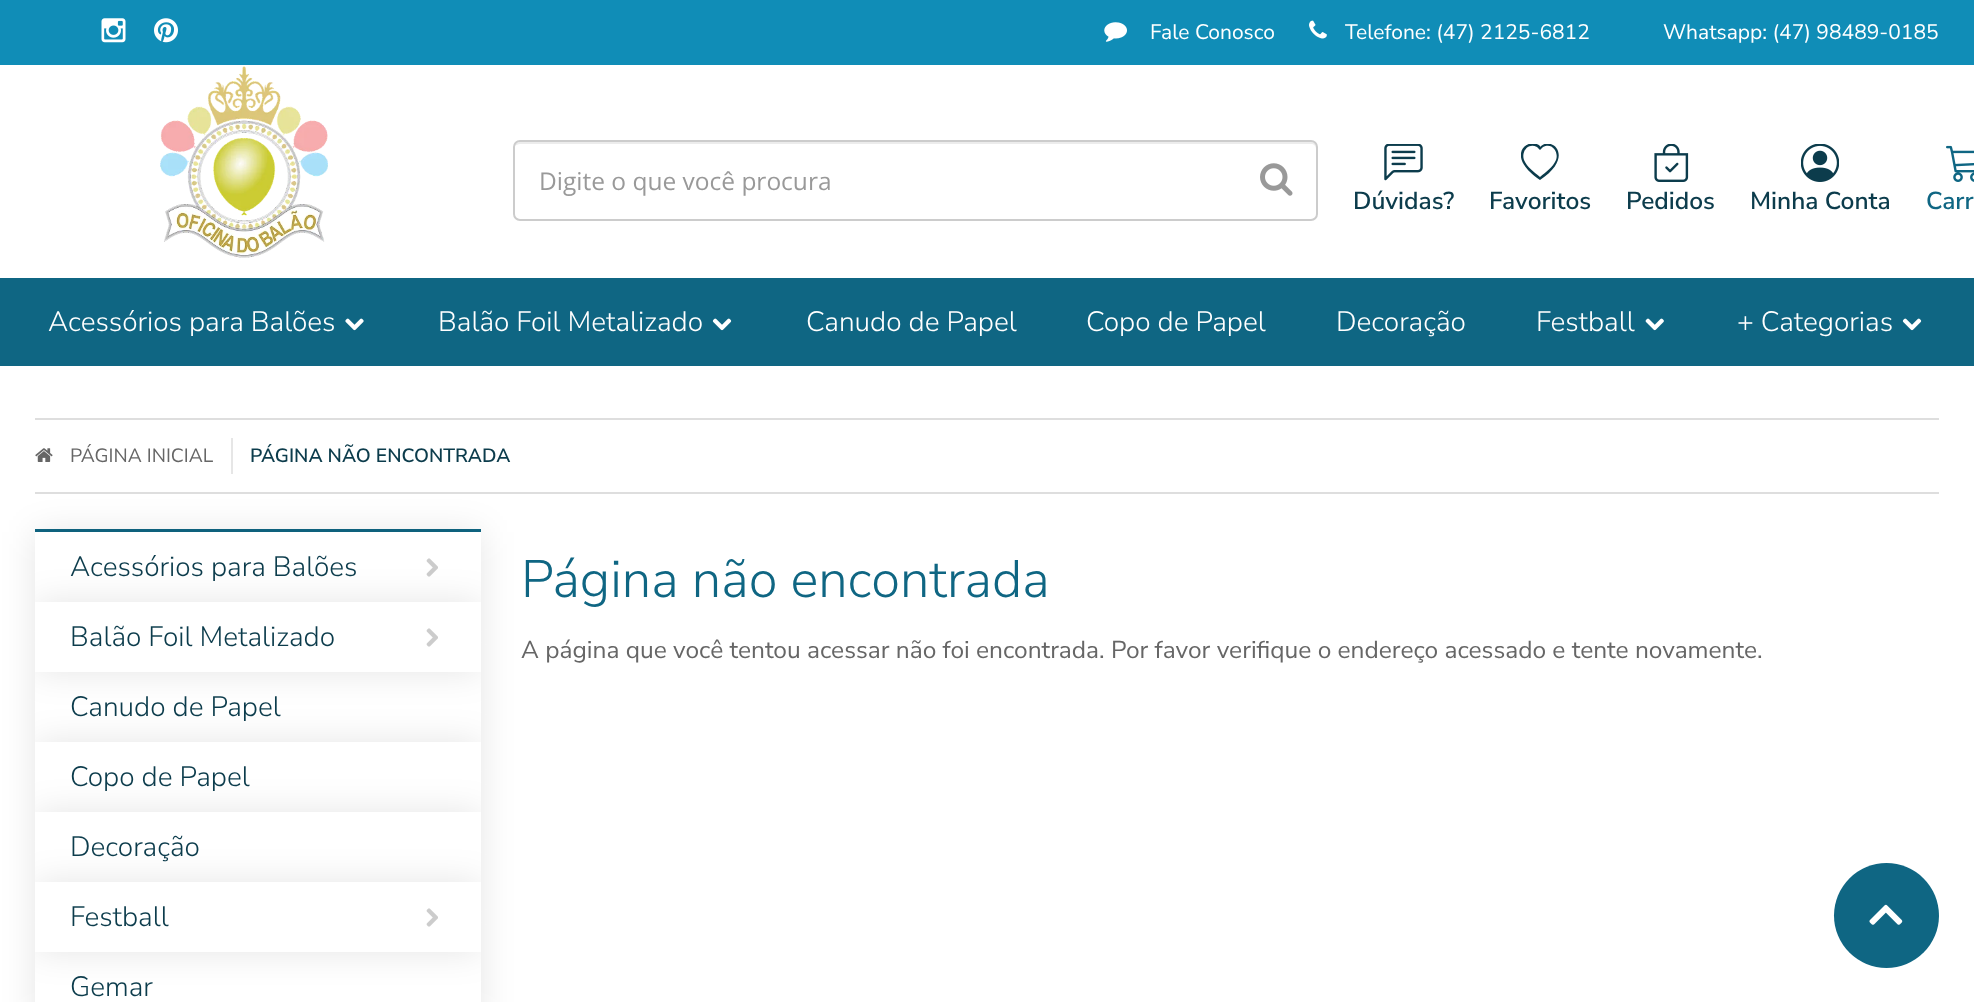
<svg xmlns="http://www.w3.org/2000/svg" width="1974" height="1002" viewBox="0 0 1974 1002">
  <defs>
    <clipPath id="clip1"><rect x="1521" y="144" width="38" height="38"/></clipPath>
    <filter id="blur1" x="-50%" y="-200%" width="200%" height="500%"><feGaussianBlur stdDeviation="17.5"/></filter>
    <clipPath id="clip2"><path d="M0 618H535V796H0ZM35 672H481V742H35Z" clip-rule="evenodd"/></clipPath>
    <clipPath id="clip3"><path d="M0 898H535V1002H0ZM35 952H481V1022H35Z" clip-rule="evenodd"/></clipPath>
  </defs>
  <rect width="100%" height="100%" fill="#ffffff"/>
  <rect x="0" y="0" width="1974" height="65" fill="#108db7"/>
  <image x="101" y="18" width="25" height="25" href="img1.png"/>
  <image x="154" y="18" width="24" height="25" href="img2.png"/>
  <image x="1104" y="22" width="23" height="20" href="img3.png"/>
  <text x="1150" y="39" font-family="Nunito Sans" font-size="21" fill="#ffffff">Fale Conosco</text>
  <image x="1309" y="20" width="18" height="19" href="img4.png"/>
  <text x="1345" y="39" font-family="Nunito Sans" font-size="21" fill="#ffffff">Telefone: (47) 2125-6812</text>
  <text x="1663" y="39" font-family="Nunito Sans" font-size="21" fill="#ffffff">Whatsapp: (47) 98489-0185</text>
  <image x="160" y="66" width="168" height="192" href="img5.png"/>
  <path d="M520 144H1311C1314 144 1316 146 1316 149V147C1316 144 1314 142 1311 142H520C518 142 515 144 515 146C516 145 518 144 520 144Z" fill="#ececec"/>
  <rect x="514" y="141" width="803" height="79" rx="6" fill="none" stroke="#cccccc" stroke-width="2"/>
  <text x="539" y="190" font-family="Open Sans" font-size="24.5" fill="#999999">Digite o que você procura</text>
  <image x="1260" y="163" width="33" height="33" href="img6.png"/>
  <image x="1384" y="144" width="39" height="37" href="img7.png"/>
  <text x="1353" y="209" font-family="Nunito Sans" font-size="24.5" font-weight="600" fill="#0c3c4c">Dúvidas?</text>
  <g clip-path="url(#clip1)">
    <path d="M1540 150L1537 147C1528 142 1521 152 1524 160C1527 167 1534 172 1540 177C1546 172 1553 167 1556 160C1559 152 1552 142 1543 147ZM1540 180C1503 155 1529 136 1540 146V147C1551 135 1576 156 1540 180Z" fill="#0c3c4c"/>
  </g>
  <text x="1489" y="209" font-family="Nunito Sans" font-size="24.5" font-weight="600" fill="#0c3c4c">Favoritos</text>
  <image x="1654" y="144" width="35" height="38" href="img8.png"/>
  <text x="1626" y="209" font-family="Nunito Sans" font-size="24.5" font-weight="600" fill="#0c3c4c">Pedidos</text>
  <image x="1801" y="144" width="38" height="38" href="img9.png"/>
  <text x="1750" y="209" font-family="Nunito Sans" font-size="24.5" font-weight="600" fill="#0c3c4c">Minha Conta</text>
  <image x="1946" y="145" width="28" height="37" href="img10.png"/>
  <text x="1926" y="209" font-family="Nunito Sans" font-size="24.5" font-weight="600" fill="#0f6683">Carr</text>
  <rect x="0" y="278" width="1974" height="88" fill="#0f6683"/>
  <text x="48" y="331" font-family="Nunito Sans" font-size="28" font-weight="300" fill="#ffffff">Acessórios para Balões</text>
  <image x="345" y="318" width="19" height="13" href="img11.png"/>
  <text x="438" y="331" font-family="Nunito Sans" font-size="28" font-weight="300" fill="#ffffff">Balão Foil Metalizado</text>
  <image x="712" y="318" width="20" height="13" href="img12.png"/>
  <text x="806" y="331" font-family="Nunito Sans" font-size="28" font-weight="300" fill="#ffffff">Canudo de Papel</text>
  <text x="1086" y="331" font-family="Nunito Sans" font-size="28" font-weight="300" fill="#ffffff">Copo de Papel</text>
  <text x="1336" y="331" font-family="Nunito Sans" font-size="28" font-weight="300" fill="#ffffff">Decoração</text>
  <text x="1536" y="331" font-family="Nunito Sans" font-size="28" font-weight="300" fill="#ffffff">Festball</text>
  <image x="1645" y="318" width="19" height="13" href="img13.png"/>
  <text x="1737" y="331" font-family="Nunito Sans" font-size="28" font-weight="300" fill="#ffffff">+ Categorias</text>
  <image x="1902" y="318" width="20" height="13" href="img12.png"/>
  <rect x="35" y="418" width="1904" height="2" fill="#dedede"/>
  <rect x="35" y="492" width="1904" height="2" fill="#dedede"/>
  <image x="35" y="448" width="18" height="14" href="img14.png"/>
  <text x="70" y="462" font-family="Nunito Sans" font-size="19.25" fill="#666666">PÁGINA INICIAL</text>
  <rect x="231" y="438" width="2" height="36" fill="#e6e6e6"/>
  <text x="250" y="462" font-family="Nunito Sans" font-size="19.25" font-weight="600" fill="#0c3c4c">PÁGINA NÃO ENCONTRADA</text>
  <rect x="35" y="529" width="446" height="3" fill="#0f6683"/>
  <rect x="35" y="532" width="446" height="70" fill="#000000" fill-opacity="0.1" filter="url(#blur1)"/>
  <rect x="35" y="532" width="446" height="70" fill="#ffffff"/>
  <text x="70" y="576" font-family="Nunito Sans" font-size="28" font-weight="300" fill="#0c3c4c">Acessórios para Balões</text>
  <image x="426" y="558" width="12" height="19" href="img15.png"/>
  <rect x="35" y="602" width="446" height="70" fill="#000000" fill-opacity="0.1" filter="url(#blur1)"/>
  <g clip-path="url(#clip2)">
    <rect x="35" y="672" width="446" height="70" fill="#000000" fill-opacity="0.1" filter="url(#blur1)"/>
  </g>
  <rect x="35" y="602" width="446" height="70" fill="#ffffff"/>
  <text x="70" y="646" font-family="Nunito Sans" font-size="28" font-weight="300" fill="#0c3c4c">Balão Foil Metalizado</text>
  <image x="426" y="628" width="12" height="19" href="img15.png"/>
  <rect x="35" y="742" width="446" height="70" fill="#000000" fill-opacity="0.1" filter="url(#blur1)"/>
  <text x="70" y="716" font-family="Nunito Sans" font-size="28" font-weight="300" fill="#0c3c4c">Canudo de Papel</text>
  <rect x="35" y="742" width="446" height="70" fill="#ffffff"/>
  <rect x="35" y="812" width="446" height="70" fill="#000000" fill-opacity="0.1" filter="url(#blur1)"/>
  <text x="70" y="786" font-family="Nunito Sans" font-size="28" font-weight="300" fill="#0c3c4c">Copo de Papel</text>
  <rect x="35" y="812" width="446" height="70" fill="#ffffff"/>
  <text x="70" y="856" font-family="Nunito Sans" font-size="28" font-weight="300" fill="#0c3c4c">Decoração</text>
  <rect x="35" y="882" width="446" height="70" fill="#000000" fill-opacity="0.1" filter="url(#blur1)"/>
  <g clip-path="url(#clip3)">
    <rect x="35" y="952" width="446" height="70" fill="#000000" fill-opacity="0.1" filter="url(#blur1)"/>
  </g>
  <rect x="35" y="882" width="446" height="70" fill="#ffffff"/>
  <text x="70" y="926" font-family="Nunito Sans" font-size="28" font-weight="300" fill="#0c3c4c">Festball</text>
  <image x="426" y="908" width="12" height="19" href="img15.png"/>
  <text x="70" y="996" font-family="Nunito Sans" font-size="28" font-weight="300" fill="#0c3c4c">Gemar</text>
  <text x="521" y="597" font-family="Nunito Sans" font-size="52.5" font-weight="300" fill="#0f6683">Página não encontrada</text>
  <text x="521" y="658" font-family="Nunito Sans" font-size="24.5" fill="#666666">A página que você tentou acessar não foi encontrada. Por favor verifique o endereço acessado e tente novamente.</text>
  <circle cx="1886.5" cy="915.5" r="52.5" fill="#0f6683"/>
  <image x="1869" y="904" width="34" height="21" href="img16.png"/>
</svg>
